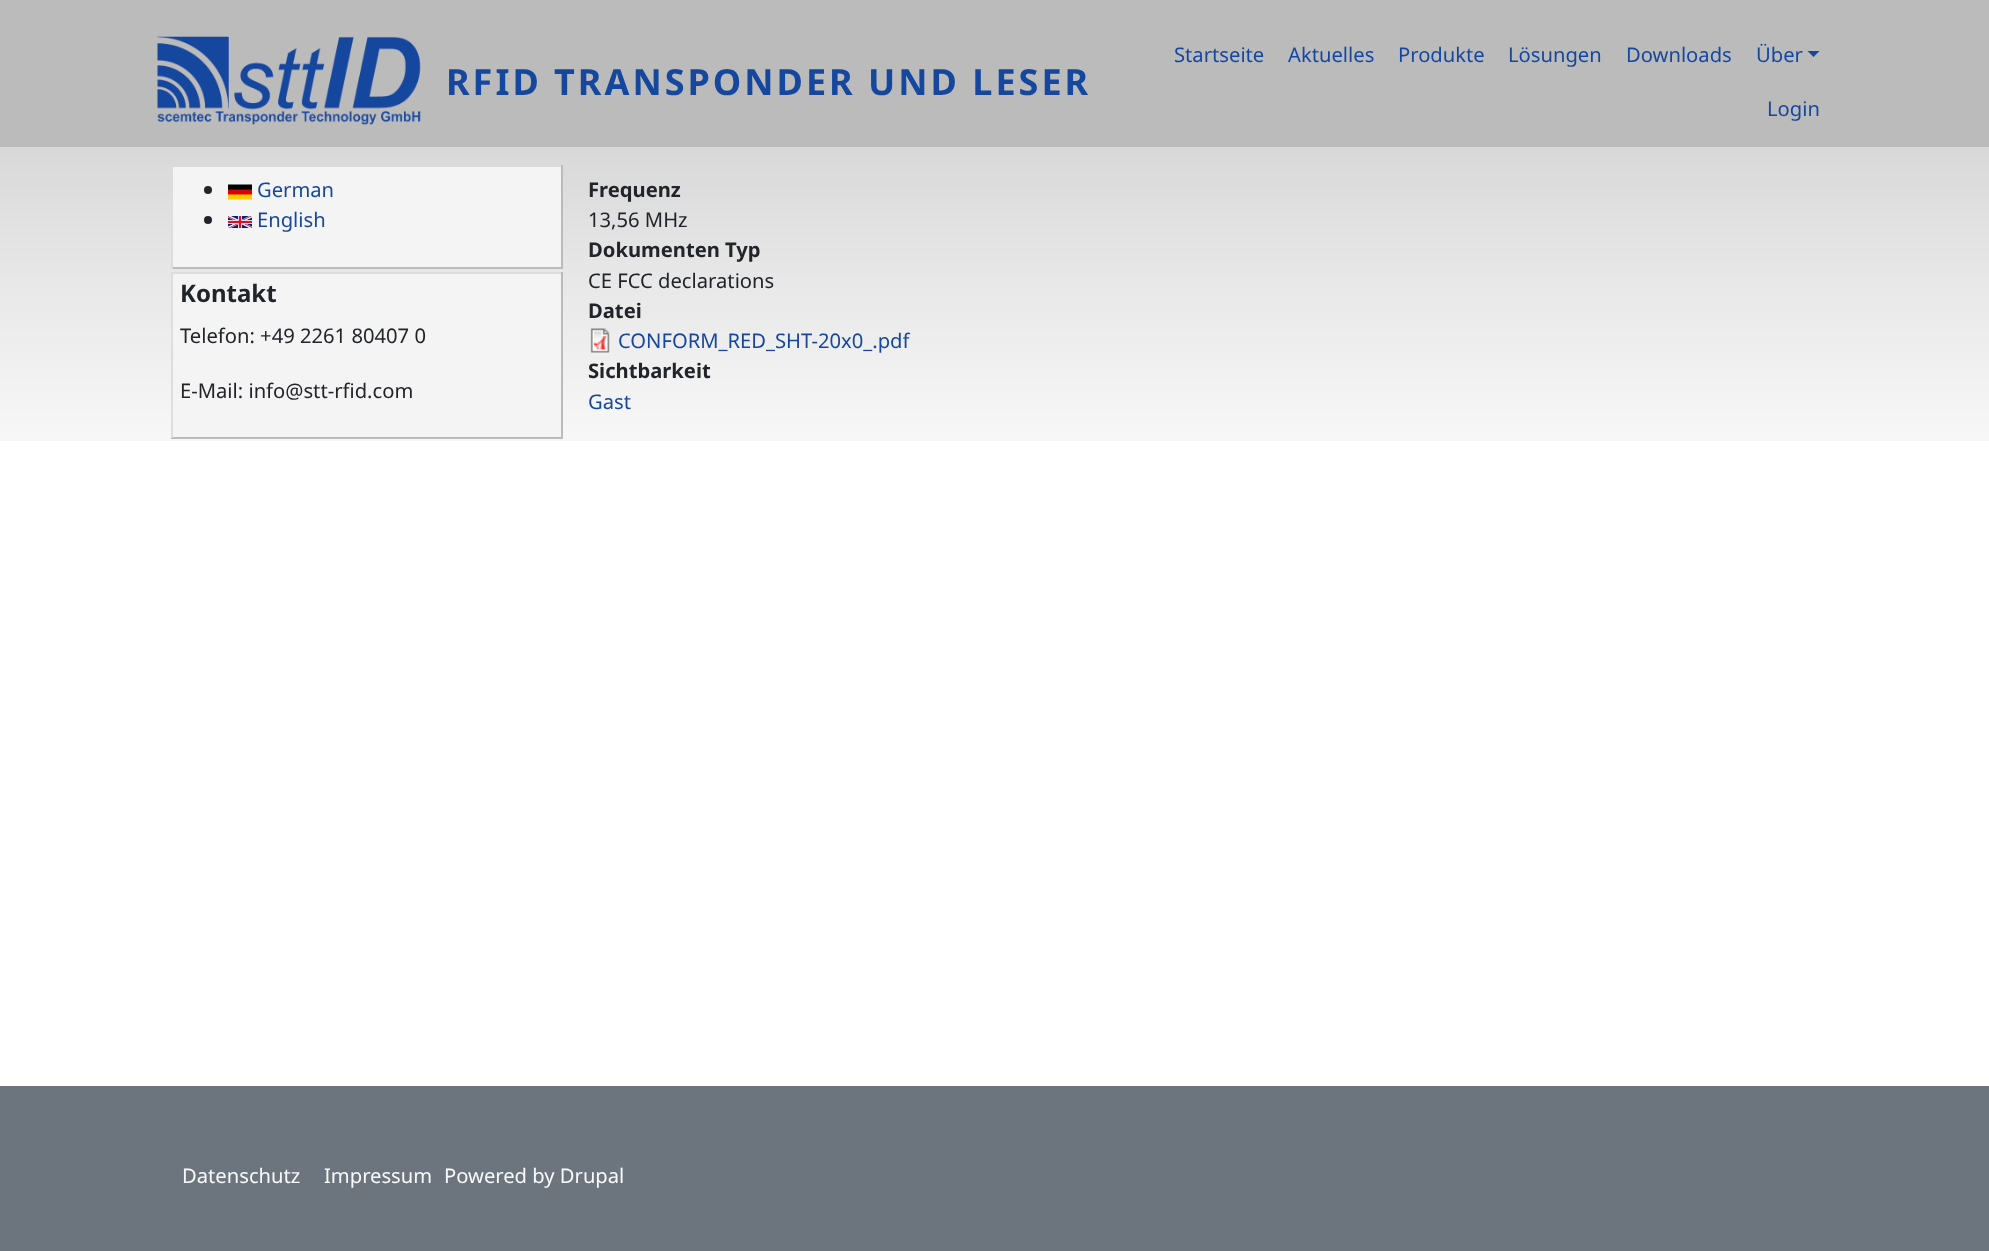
<svg xmlns="http://www.w3.org/2000/svg" width="1989" height="1251" viewBox="0 0 1989 1251">
  <rect width="100%" height="100%" fill="#ffffff"/>
  <rect x="0" y="0" width="1989" height="147" fill="#bbbbbb"/>
  <image x="157" y="36" width="264" height="89" href="img1.png"/>
  <text x="446" y="95" font-family="Noto Sans" font-size="36" font-weight="bold" letter-spacing="3" fill="#16479e">RFID TRANSPONDER UND LESER</text>
  <text x="1174" y="62" font-family="Noto Sans" font-size="20.2" fill="#16479e">Startseite</text>
  <text x="1288" y="62" font-family="Noto Sans" font-size="20.2" fill="#16479e">Aktuelles</text>
  <text x="1398" y="62" font-family="Noto Sans" font-size="20.2" fill="#16479e">Produkte</text>
  <text x="1508" y="62" font-family="Noto Sans" font-size="20.2" fill="#16479e">Lösungen</text>
  <text x="1626" y="62" font-family="Noto Sans" font-size="20.2" fill="#16479e">Downloads</text>
  <text x="1756" y="62" font-family="Noto Sans" font-size="20.2" fill="#16479e">Über</text>
  <path d="M1807.5 51H1819.5L1813.5 57Z" fill="#16479e"/>
  <text x="1767" y="116" font-family="Noto Sans" font-size="20.2" fill="#16479e">Login</text>
  <image x="0" y="147" width="1989" height="294" href="img2.png"/>
  <rect x="173" y="167" width="388" height="100" fill="#f4f4f4"/>
  <rect x="561" y="165" width="2" height="104" fill="#bbbbbb"/>
  <rect x="171" y="267" width="392" height="2" fill="#bbbbbb"/>
  <rect x="171" y="211" width="2" height="58" fill="#dddddd"/>
  <circle cx="208" cy="190" r="4" fill="#212529"/>
  <image x="228" y="184" width="24" height="16" href="img3.png"/>
  <text x="257" y="197" font-family="Noto Sans" font-size="20.2" fill="#16479e">German</text>
  <circle cx="208" cy="220" r="4" fill="#212529"/>
  <image x="228" y="216" width="24" height="12" href="img4.png"/>
  <text x="257" y="227" font-family="Noto Sans" font-size="20.2" fill="#16479e">English</text>
  <rect x="173" y="274" width="388" height="163" fill="#f4f4f4"/>
  <rect x="171" y="272" width="392" height="2" fill="#dddddd"/>
  <rect x="561" y="272" width="2" height="166" fill="#bbbbbb"/>
  <rect x="171" y="437" width="392" height="2" fill="#bbbbbb"/>
  <rect x="171" y="272" width="2" height="166" fill="#dddddd"/>
  <text x="180" y="302" font-family="Noto Sans" font-size="24" font-weight="bold" fill="#212529">Kontakt</text>
  <text x="180" y="343" font-family="Noto Sans" font-size="20.2" fill="#212529">Telefon: +49 2261 80407 0</text>
  <text x="180" y="398" font-family="Noto Sans" font-size="20.2" fill="#212529">E-Mail: info@stt-rfid.com</text>
  <text x="588" y="197" font-family="Noto Sans" font-size="20.2" font-weight="bold" fill="#212529">Frequenz</text>
  <text x="588" y="227" font-family="Noto Sans" font-size="20.2" fill="#212529">13,56 MHz</text>
  <text x="588" y="257" font-family="Noto Sans" font-size="20.2" font-weight="bold" fill="#212529">Dokumenten Typ</text>
  <text x="588" y="288" font-family="Noto Sans" font-size="20.2" fill="#212529">CE FCC declarations</text>
  <text x="588" y="318" font-family="Noto Sans" font-size="20.2" font-weight="bold" fill="#212529">Datei</text>
  <image x="590" y="328" width="20" height="25" href="img5.png"/>
  <text x="618" y="348" font-family="Noto Sans" font-size="20.2" fill="#16479e">CONFORM_RED_SHT-20x0_.pdf</text>
  <text x="588" y="378" font-family="Noto Sans" font-size="20.2" font-weight="bold" fill="#212529">Sichtbarkeit</text>
  <text x="588" y="409" font-family="Noto Sans" font-size="20.2" fill="#16479e">Gast</text>
  <rect x="0" y="1086" width="1989" height="165" fill="#6c757d"/>
  <text x="182" y="1183" font-family="Noto Sans" font-size="20.2" fill="#f8f9fa">Datenschutz</text>
  <text x="324" y="1183" font-family="Noto Sans" font-size="20.2" fill="#f8f9fa">Impressum</text>
  <text x="444" y="1183" font-family="Noto Sans" font-size="20.2" fill="#f8f9fa">Powered by Drupal</text>
</svg>
